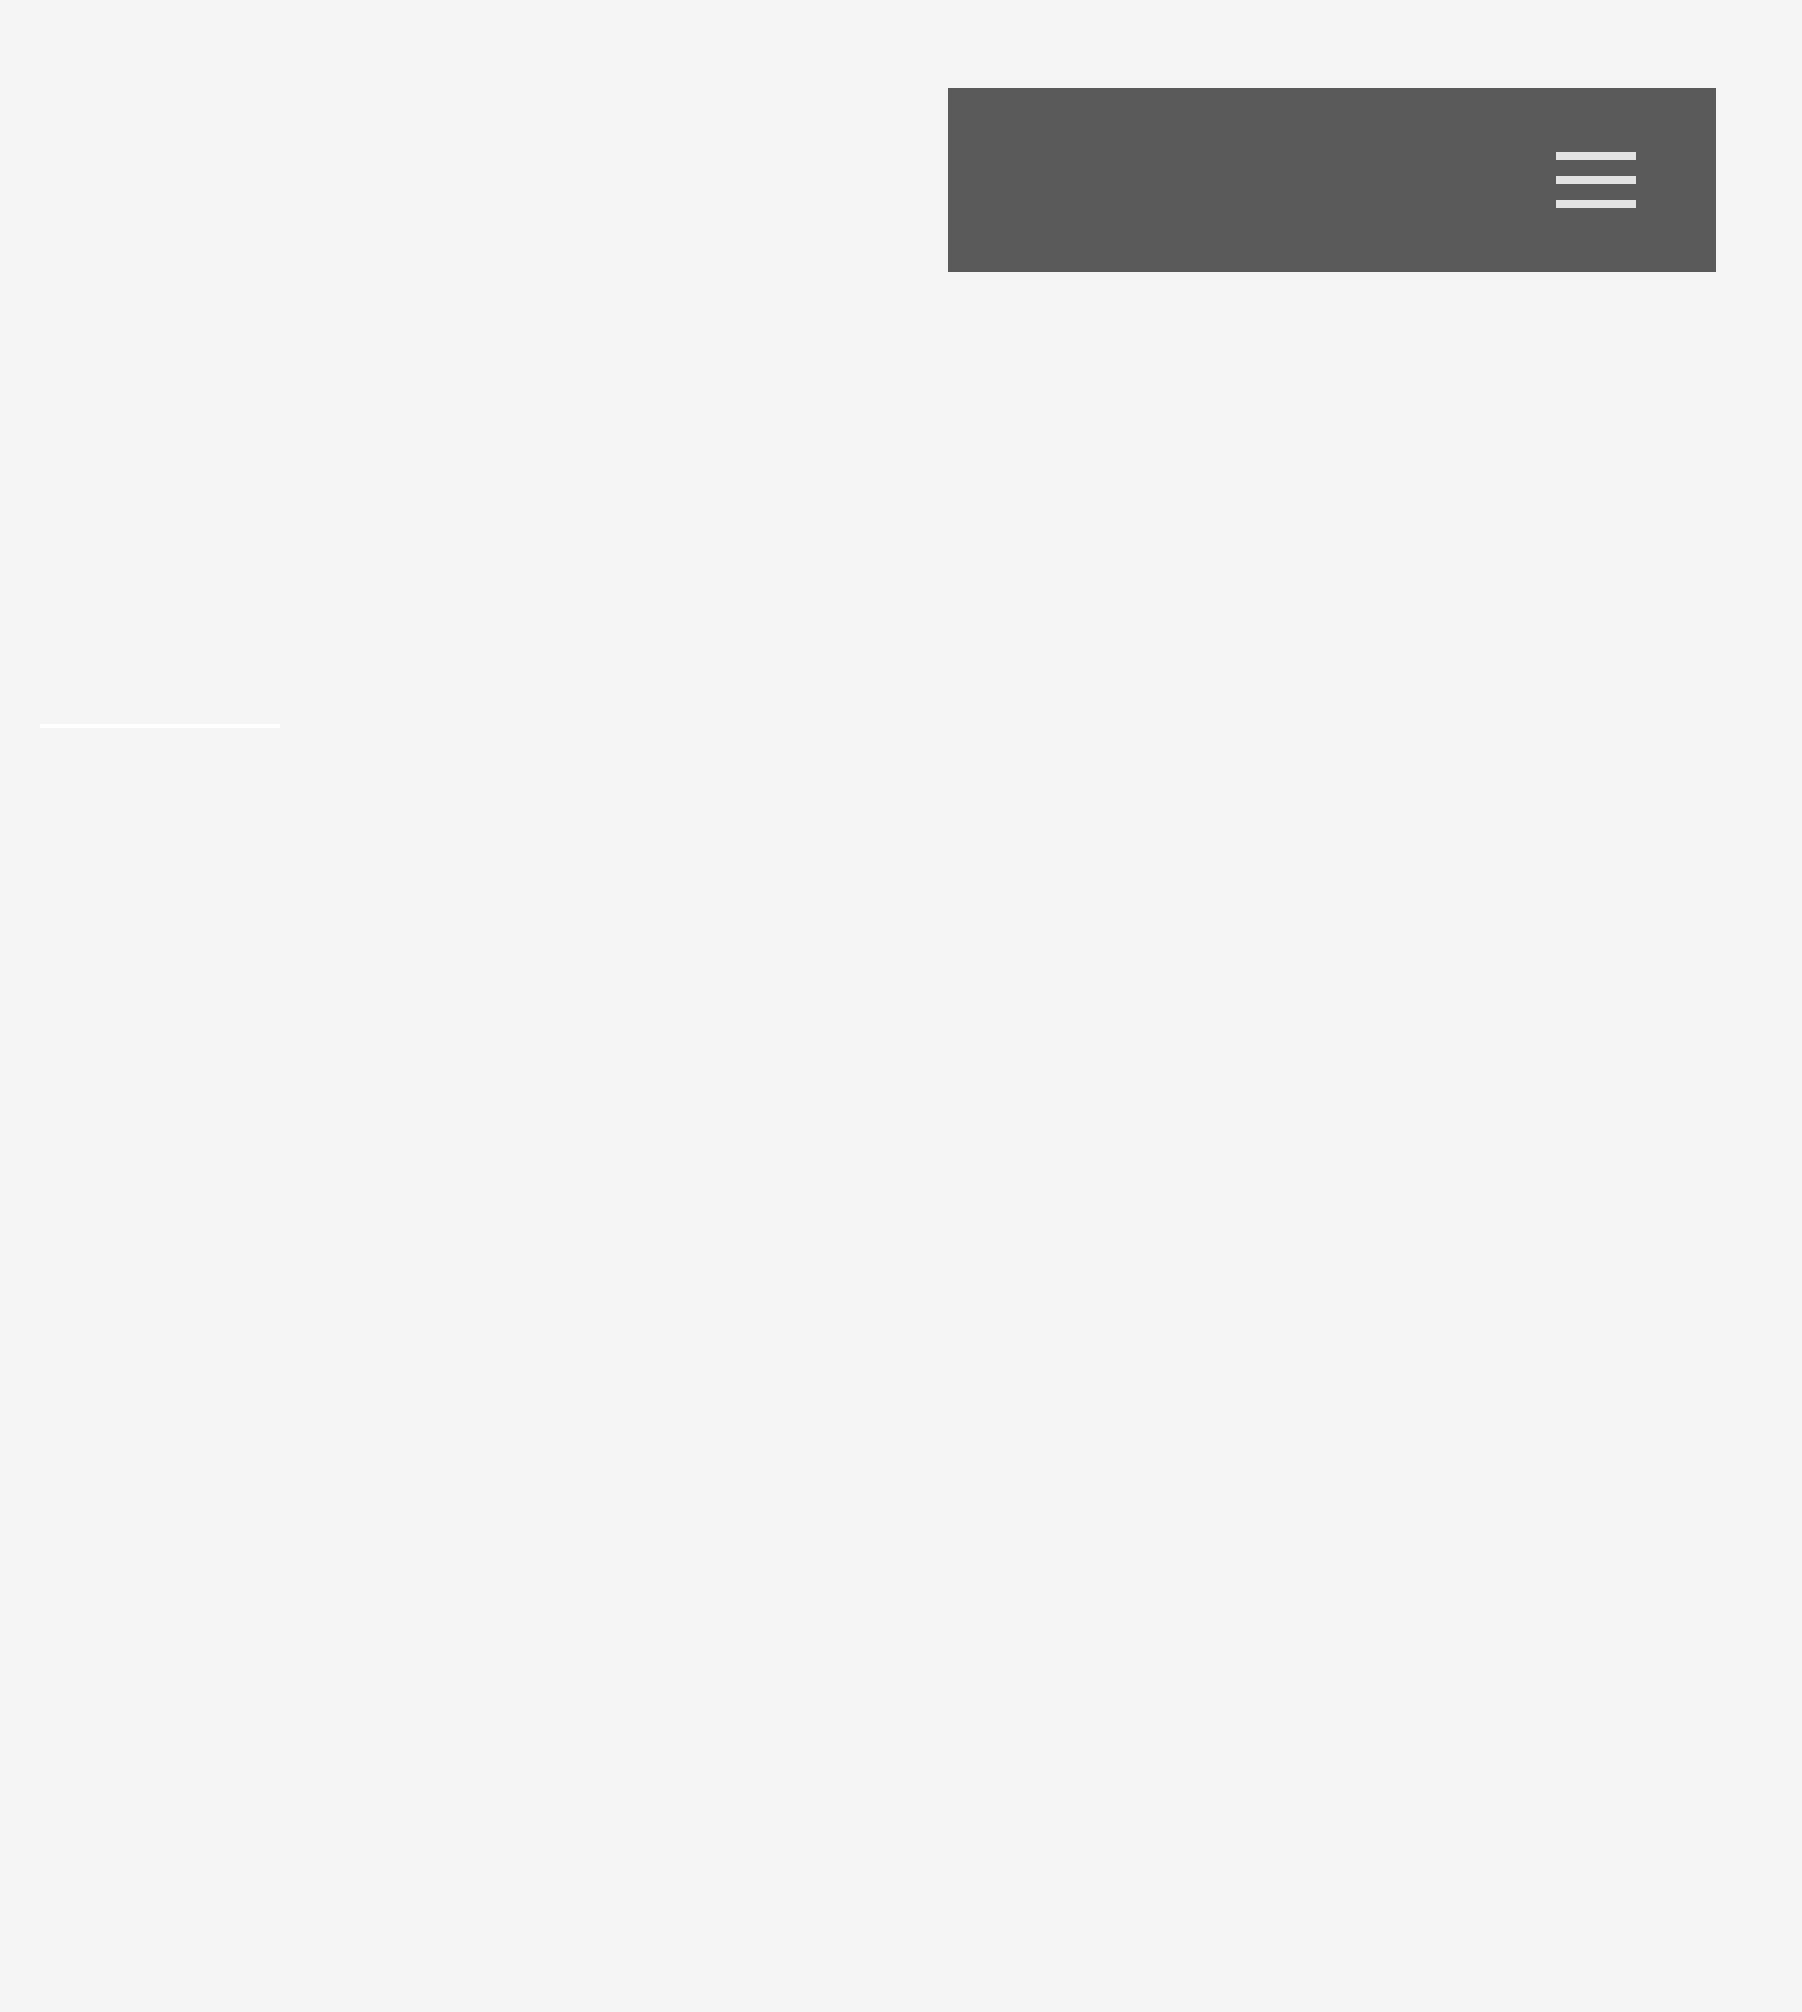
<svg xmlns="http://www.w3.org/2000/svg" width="1802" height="2012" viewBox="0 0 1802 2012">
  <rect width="100%" height="100%" fill="#f5f5f5"/>
  <rect x="948" y="88" width="768" height="184" fill="#5a5a5a"/>
  <rect x="1556" y="152" width="80" height="8" fill="#e2e2e2"/>
  <rect x="1556" y="176" width="80" height="8" fill="#e2e2e2"/>
  <rect x="1556" y="200" width="80" height="8" fill="#e2e2e2"/>
  <rect x="40" y="724" width="240" height="4" fill="#ffffff"/>
</svg>
